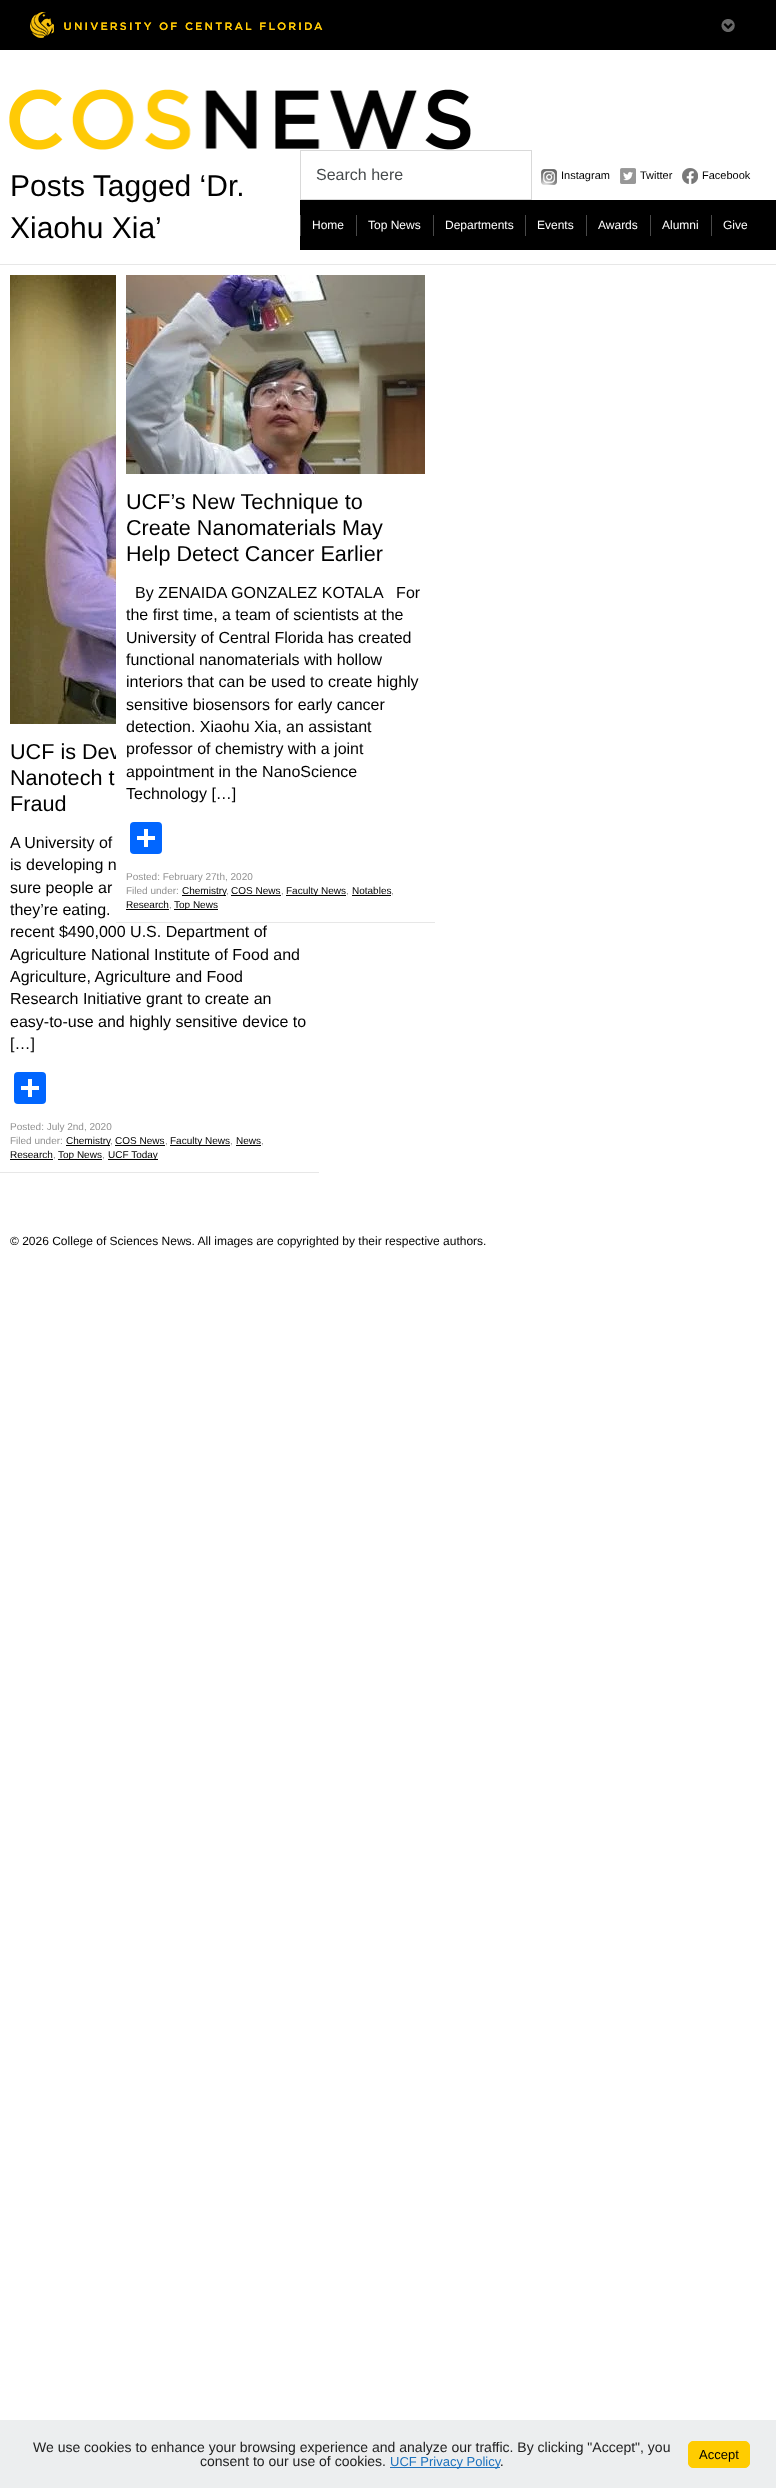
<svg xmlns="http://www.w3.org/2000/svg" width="776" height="2488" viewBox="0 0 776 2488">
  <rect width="100%" height="100%" fill="#ffffff"/>
  <rect x="0" y="0" width="776" height="50" fill="#000000"/>
  <image x="30" y="12" width="293" height="26" href="img1.png"/>
  <image x="721" y="19" width="14" height="13" href="img2.png"/>
  <rect x="0" y="264" width="776" height="1" fill="#e7e7e7"/>
  <text x="10" y="196" font-family="Liberation Sans" font-size="30" fill="#000000">Posts Tagged ‘Dr.</text>
  <text x="10" y="238" font-family="Liberation Sans" font-size="30" fill="#000000">Xiaohu Xia’</text>
  <image x="9" y="89" width="462" height="61" href="img3.png"/>
  <rect x="300.5" y="150.5" width="231" height="49" fill="none" stroke="#d9d9d9"/>
  <text x="316" y="180" font-family="Liberation Sans" font-size="16" fill="#464a4c">Search here</text>
  <image x="541" y="169" width="16" height="16" href="img4.png"/>
  <text x="561" y="179" font-family="Liberation Sans" font-size="11" fill="#000000">Instagram</text>
  <image x="620" y="168" width="16" height="16" href="img5.png"/>
  <text x="640" y="179" font-family="Liberation Sans" font-size="11" fill="#000000">Twitter</text>
  <image x="682" y="168" width="16" height="16" href="img6.png"/>
  <text x="702" y="179" font-family="Liberation Sans" font-size="11" fill="#000000">Facebook</text>
  <rect x="300" y="200" width="476" height="50" fill="#000000"/>
  <rect x="300" y="215" width="1" height="21" fill="#494949"/>
  <text x="312" y="229" font-family="Liberation Sans" font-size="12" fill="#ffffff">Home</text>
  <rect x="356" y="215" width="1" height="21" fill="#494949"/>
  <text x="368" y="229" font-family="Liberation Sans" font-size="12" fill="#ffffff">Top News</text>
  <rect x="433" y="215" width="1" height="21" fill="#494949"/>
  <text x="445" y="229" font-family="Liberation Sans" font-size="12" fill="#ffffff">Departments</text>
  <rect x="525" y="215" width="1" height="21" fill="#494949"/>
  <text x="537" y="229" font-family="Liberation Sans" font-size="12" fill="#ffffff">Events</text>
  <rect x="586" y="215" width="1" height="21" fill="#494949"/>
  <text x="598" y="229" font-family="Liberation Sans" font-size="12" fill="#ffffff">Awards</text>
  <rect x="650" y="215" width="1" height="21" fill="#494949"/>
  <text x="662" y="229" font-family="Liberation Sans" font-size="12" fill="#ffffff">Alumni</text>
  <rect x="711" y="215" width="1" height="21" fill="#494949"/>
  <text x="723" y="229" font-family="Liberation Sans" font-size="12" fill="#ffffff">Give</text>
  <text x="10" y="759" font-family="Liberation Sans" font-size="21.6" fill="#000000">UCF is Dev</text>
  <rect x="116" y="747" width="5" height="12" fill="#ffffff"/>
  <rect x="116" y="922" width="319" height="1" fill="#e7e7e7"/>
  <image x="126" y="275" width="299" height="199" href="img7.png"/>
  <text x="126" y="509" font-family="Liberation Sans" font-size="21.6" fill="#000000">UCF’s New Technique to</text>
  <text x="126" y="535" font-family="Liberation Sans" font-size="21.6" fill="#000000">Create Nanomaterials May</text>
  <text x="126" y="561" font-family="Liberation Sans" font-size="21.6" fill="#000000">Help Detect Cancer Earlier</text>
  <text x="135" y="598" font-family="Liberation Sans" font-size="16" fill="#000000" xml:space="preserve">By ZENAIDA GONZALEZ KOTALA   For</text>
  <text x="126" y="620" font-family="Liberation Sans" font-size="16" fill="#000000">the first time, a team of scientists at the</text>
  <text x="126" y="643" font-family="Liberation Sans" font-size="16" fill="#000000">University of Central Florida has created</text>
  <text x="126" y="665" font-family="Liberation Sans" font-size="16" fill="#000000">functional nanomaterials with hollow</text>
  <text x="126" y="687" font-family="Liberation Sans" font-size="16" fill="#000000">interiors that can be used to create highly</text>
  <text x="126" y="710" font-family="Liberation Sans" font-size="16" fill="#000000">sensitive biosensors for early cancer</text>
  <text x="126" y="732" font-family="Liberation Sans" font-size="16" fill="#000000">detection. Xiaohu Xia, an assistant</text>
  <text x="126" y="754" font-family="Liberation Sans" font-size="16" fill="#000000">professor of chemistry with a joint</text>
  <text x="126" y="777" font-family="Liberation Sans" font-size="16" fill="#000000">appointment in the NanoScience</text>
  <text x="126" y="799" font-family="Liberation Sans" font-size="16" fill="#000000">Technology […]</text>
  <rect x="130" y="822" width="32" height="32" rx="4" fill="#0166ff"/>
  <rect x="144" y="829" width="4" height="18" fill="#ffffff"/>
  <rect x="137" y="836" width="18" height="4" fill="#ffffff"/>
  <text x="126" y="880" font-family="Liberation Sans" font-size="10" fill="#929292">Posted: February 27th, 2020</text>
  <text x="126" y="894" font-family="Liberation Sans" font-size="10" fill="#929292">Filed under:</text>
  <rect x="182" y="895" width="44" height="1" fill="#000000"/>
  <text x="182" y="894" font-family="Liberation Sans" font-size="10" fill="#000000">Chemistry</text>
  <text x="231" y="894" font-family="Liberation Sans" font-size="10" fill="#000000">COS News</text>
  <rect x="231" y="895" width="50" height="1" fill="#000000"/>
  <rect x="286" y="895" width="60" height="1" fill="#000000"/>
  <text x="286" y="894" font-family="Liberation Sans" font-size="10" fill="#000000">Faculty News</text>
  <text x="352" y="894" font-family="Liberation Sans" font-size="10" fill="#000000">Notables</text>
  <rect x="352" y="895" width="39" height="1" fill="#000000"/>
  <text x="226" y="894" font-family="Liberation Sans" font-size="10" fill="#929292">,</text>
  <text x="281" y="894" font-family="Liberation Sans" font-size="10" fill="#929292">,</text>
  <text x="346" y="894" font-family="Liberation Sans" font-size="10" fill="#929292">,</text>
  <text x="391" y="894" font-family="Liberation Sans" font-size="10" fill="#929292">,</text>
  <text x="126" y="908" font-family="Liberation Sans" font-size="10" fill="#000000">Research</text>
  <rect x="126" y="909" width="43" height="1" fill="#000000"/>
  <text x="169" y="908" font-family="Liberation Sans" font-size="10" fill="#929292">,</text>
  <rect x="174" y="909" width="44" height="1" fill="#000000"/>
  <text x="174" y="908" font-family="Liberation Sans" font-size="10" fill="#000000">Top News</text>
  <rect x="0" y="1172" width="319" height="1" fill="#e7e7e7"/>
  <image x="10" y="275" width="106" height="449" href="img8.png"/>
  <text x="10" y="785" font-family="Liberation Sans" font-size="21.6" fill="#000000">Nanotech t</text>
  <text x="10" y="811" font-family="Liberation Sans" font-size="21.6" fill="#000000">Fraud</text>
  <text x="10" y="848" font-family="Liberation Sans" font-size="16" fill="#000000">A University of</text>
  <text x="10" y="870" font-family="Liberation Sans" font-size="16" fill="#000000">is developing n</text>
  <text x="10" y="893" font-family="Liberation Sans" font-size="16" fill="#000000">sure people ar</text>
  <text x="10" y="915" font-family="Liberation Sans" font-size="16" fill="#000000">they’re eating.</text>
  <text x="10" y="937" font-family="Liberation Sans" font-size="16" fill="#000000">recent $490,000 U.S. Department of</text>
  <text x="10" y="960" font-family="Liberation Sans" font-size="16" fill="#000000">Agriculture National Institute of Food and</text>
  <text x="10" y="982" font-family="Liberation Sans" font-size="16" fill="#000000">Agriculture, Agriculture and Food</text>
  <text x="10" y="1004" font-family="Liberation Sans" font-size="16" fill="#000000">Research Initiative grant to create an</text>
  <text x="10" y="1027" font-family="Liberation Sans" font-size="16" fill="#000000">easy-to-use and highly sensitive device to</text>
  <text x="10" y="1049" font-family="Liberation Sans" font-size="16" fill="#000000">[…]</text>
  <rect x="14" y="1072" width="32" height="32" rx="4" fill="#0166ff"/>
  <rect x="28" y="1079" width="4" height="18" fill="#ffffff"/>
  <rect x="21" y="1086" width="18" height="4" fill="#ffffff"/>
  <text x="10" y="1130" font-family="Liberation Sans" font-size="10" fill="#929292">Posted: July 2nd, 2020</text>
  <text x="10" y="1144" font-family="Liberation Sans" font-size="10" fill="#929292">Filed under:</text>
  <rect x="66" y="1145" width="44" height="1" fill="#000000"/>
  <text x="66" y="1144" font-family="Liberation Sans" font-size="10" fill="#000000">Chemistry</text>
  <text x="115" y="1144" font-family="Liberation Sans" font-size="10" fill="#000000">COS News</text>
  <rect x="115" y="1145" width="50" height="1" fill="#000000"/>
  <rect x="170" y="1145" width="60" height="1" fill="#000000"/>
  <text x="170" y="1144" font-family="Liberation Sans" font-size="10" fill="#000000">Faculty News</text>
  <text x="236" y="1144" font-family="Liberation Sans" font-size="10" fill="#000000">News</text>
  <rect x="236" y="1145" width="25" height="1" fill="#000000"/>
  <text x="110" y="1144" font-family="Liberation Sans" font-size="10" fill="#929292">,</text>
  <text x="165" y="1144" font-family="Liberation Sans" font-size="10" fill="#929292">,</text>
  <text x="230" y="1144" font-family="Liberation Sans" font-size="10" fill="#929292">,</text>
  <text x="261" y="1144" font-family="Liberation Sans" font-size="10" fill="#929292">,</text>
  <text x="10" y="1158" font-family="Liberation Sans" font-size="10" fill="#000000">Research</text>
  <rect x="10" y="1159" width="43" height="1" fill="#000000"/>
  <text x="53" y="1158" font-family="Liberation Sans" font-size="10" fill="#929292">,</text>
  <rect x="58" y="1159" width="44" height="1" fill="#000000"/>
  <text x="58" y="1158" font-family="Liberation Sans" font-size="10" fill="#000000">Top News</text>
  <text x="102" y="1158" font-family="Liberation Sans" font-size="10" fill="#929292">,</text>
  <rect x="108" y="1159" width="50" height="1" fill="#000000"/>
  <text x="108" y="1158" font-family="Liberation Sans" font-size="10" fill="#000000">UCF Today</text>
  <text x="10" y="1245" font-family="Liberation Sans" font-size="12" fill="#000000">© 2026 College of Sciences News. All images are copyrighted by their respective authors.</text>
  <rect x="0" y="2420" width="776" height="68" fill="#eceeef"/>
  <text x="33" y="2452" font-family="Liberation Sans" font-size="14" fill="#212121">We use cookies to enhance your browsing experience and analyze our traffic. By clicking "Accept", you</text>
  <text x="200" y="2466" font-family="Liberation Sans" font-size="14" fill="#212121">consent to our use of cookies.</text>
  <rect x="390" y="2467" width="110" height="1" fill="#1e73be"/>
  <text x="390" y="2466" font-family="Liberation Sans" font-size="13" fill="#1e73be">UCF Privacy Policy</text>
  <text x="500" y="2466" font-family="Liberation Sans" font-size="13" fill="#000000">.</text>
  <rect x="688.5" y="2441.5" width="61" height="26" rx="4.5" fill="#ffcc00" stroke="#ffcc00"/>
  <text x="699" y="2459" font-family="Liberation Sans" font-size="13" fill="#000000">Accept</text>
</svg>
